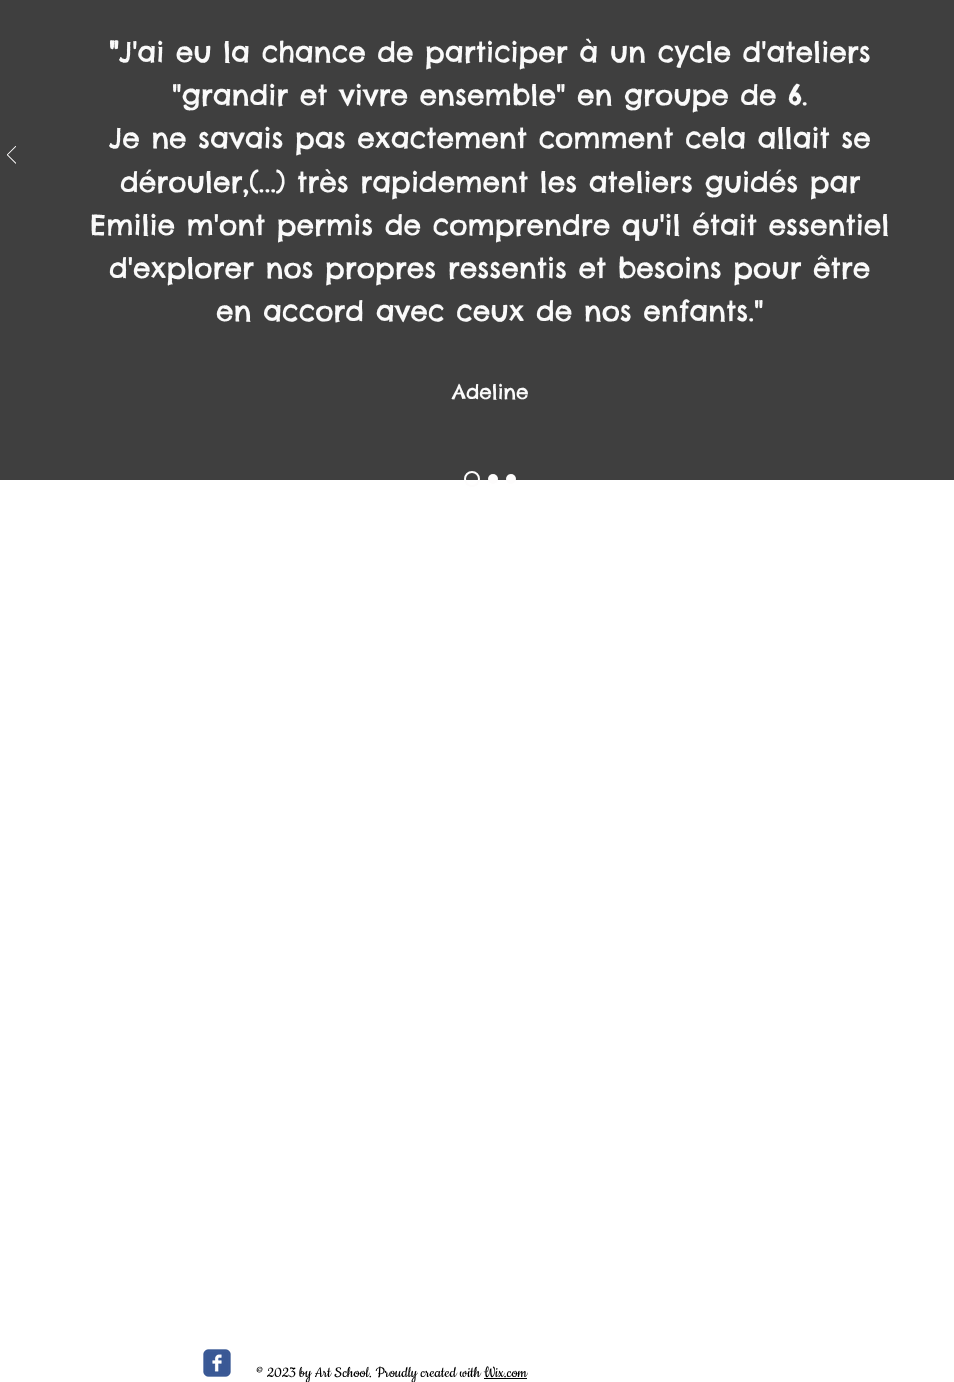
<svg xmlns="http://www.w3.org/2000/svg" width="954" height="1382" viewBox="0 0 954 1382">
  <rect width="100%" height="100%" fill="#ffffff"/>
  <rect x="0" y="0" width="954" height="480" fill="#3f3f3f"/>
  <image x="7" y="146" width="9" height="18" href="img1.png"/>
  <text x="109" y="62" font-family="Chelsea Market" font-size="28" font-weight="bold" fill="#fafafa">"</text>
  <text x="119" y="62" font-family="Chelsea Market" font-size="28" fill="#fafafa">J'ai eu la chance de participer à un cycle d'ateliers</text>
  <text x="172" y="105" font-family="Chelsea Market" font-size="28" fill="#fafafa">"grandir et vivre ensemble" en groupe de 6.</text>
  <text x="109" y="148" font-family="Chelsea Market" font-size="28" fill="#fafafa">Je ne savais pas exactement comment cela allait se</text>
  <text x="120" y="192" font-family="Chelsea Market" font-size="28" fill="#fafafa">dérouler,(...) très rapidement les ateliers guidés par</text>
  <text x="90" y="235" font-family="Chelsea Market" font-size="28" fill="#fafafa">Emilie m'ont permis de comprendre qu'il était essentiel</text>
  <text x="109" y="278" font-family="Chelsea Market" font-size="28" fill="#fafafa">d'explorer nos propres ressentis et besoins pour être</text>
  <text x="216" y="321" font-family="Chelsea Market" font-size="28" fill="#fafafa">en accord avec ceux de nos enfants."</text>
  <text x="452" y="399" font-family="Chelsea Market" font-size="20" fill="#fafafa">Adeline</text>
  <circle cx="472" cy="479" r="7" fill="none" stroke="#fdfcfc" stroke-width="2"/>
  <circle cx="493" cy="479" r="5" fill="#fdfcfc"/>
  <circle cx="511" cy="479" r="5" fill="#fdfcfc"/>
  <image x="203" y="1349" width="28" height="28" href="img2.png"/>
  <text x="256" y="1377" font-family="Cookie" font-size="17" fill="#000000">© 2023 by Art School. Proudly created with Wix.com</text>
  <rect x="484" y="1378" width="43" height="1" fill="#000000"/>
</svg>
